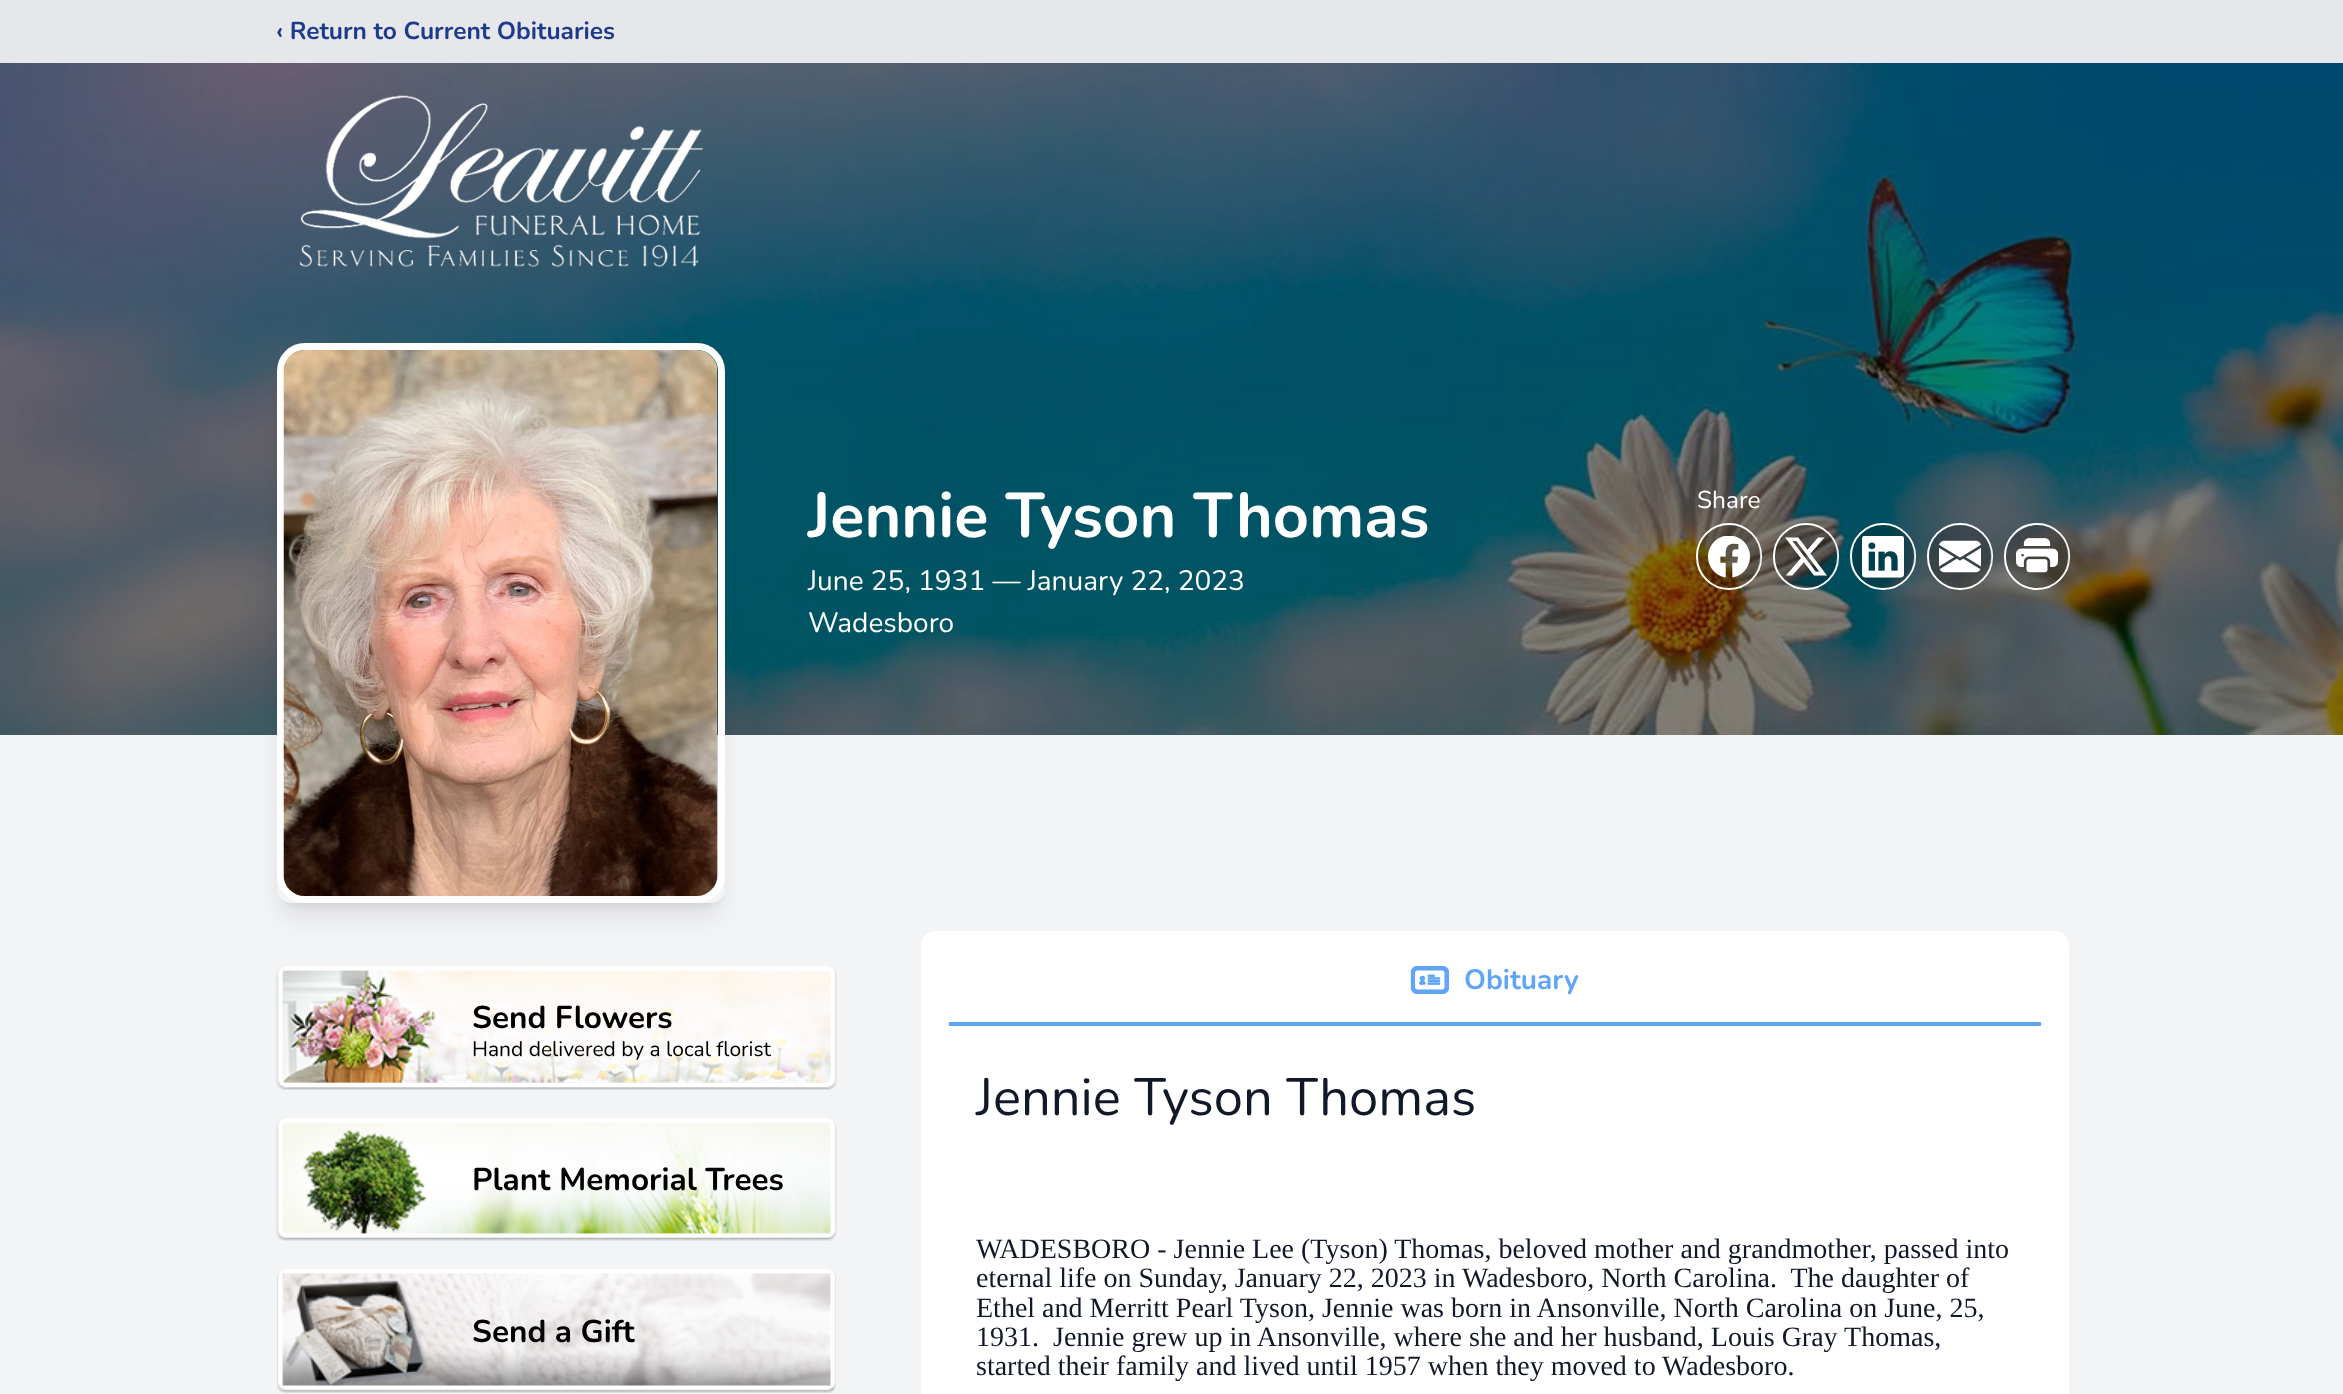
<svg xmlns="http://www.w3.org/2000/svg" width="2343" height="1394" viewBox="0 0 2343 1394">
  <defs>
    <clipPath id="clip1"><path d="M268 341H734V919H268ZM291 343H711C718.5 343 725 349.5 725 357V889C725 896.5 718.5 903 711 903H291C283.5 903 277 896.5 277 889V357C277 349.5 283.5 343 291 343Z" clip-rule="evenodd"/></clipPath>
    <filter id="blur1" x="-50%" y="-200%" width="200%" height="500%"><feGaussianBlur stdDeviation="5"/></filter>
    <clipPath id="clip2"><path d="M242 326H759V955H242ZM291 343H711C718.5 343 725 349.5 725 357V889C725 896.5 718.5 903 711 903H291C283.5 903 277 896.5 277 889V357C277 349.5 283.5 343 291 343Z" clip-rule="evenodd"/></clipPath>
    <filter id="blur2" x="-50%" y="-200%" width="200%" height="500%"><feGaussianBlur stdDeviation="13"/></filter>
    <clipPath id="clip3"><rect x="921" y="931" width="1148" height="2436"/></clipPath>
    <filter id="blur3" x="-50%" y="-200%" width="200%" height="500%"><feGaussianBlur stdDeviation="2.5"/></filter>
  </defs>
  <rect width="100%" height="100%" fill="#f3f4f6"/>
  <rect x="0" y="0" width="2343" height="63" fill="#e5e7eb"/>
  <text x="276" y="39" font-family="Nunito" font-size="24.5" font-weight="bold" fill="#1e3a8a">‹ Return to Current Obituaries</text>
  <image x="0" y="63" width="2343" height="672" href="img1.png"/>
  <image x="299" y="95" width="405" height="173" href="img2.png"/>
  <g clip-path="url(#clip1)">
    <rect x="284" y="357" width="434" height="546" rx="7" fill="#000000" fill-opacity="0.1" filter="url(#blur1)"/>
  </g>
  <g clip-path="url(#clip2)">
    <rect x="282" y="366" width="437" height="549" rx="9" fill="#000000" fill-opacity="0.1" filter="url(#blur2)"/>
  </g>
  <rect x="280.5" y="346.5" width="441" height="553" rx="24.5" fill="none" stroke="#ffffff" stroke-width="7"/>
  <image x="283" y="350" width="435" height="546" href="img3.png"/>
  <text x="808" y="537" font-family="Nunito" font-size="63" font-weight="bold" fill="#ffffff">Jennie Tyson Thomas</text>
  <text x="808" y="590" font-family="Nunito" font-size="28" fill="#ffffff">June 25, 1931 — January 22, 2023</text>
  <text x="808" y="632" font-family="Nunito" font-size="28" fill="#ffffff">Wadesboro</text>
  <text x="1697" y="508" font-family="Nunito" font-size="24.5" fill="#ffffff">Share</text>
  <rect x="1697" y="524" width="64" height="65" rx="32" fill="none" stroke="#ffffff" stroke-width="2"/>
  <circle cx="1729.5" cy="556.5" r="31.5" fill="#000000" fill-opacity="0.2"/>
  <image x="1708" y="536" width="42" height="42" href="img4.png"/>
  <rect x="1774" y="524" width="64" height="65" rx="32" fill="none" stroke="#ffffff" stroke-width="2"/>
  <circle cx="1806.5" cy="556.5" r="31.5" fill="#000000" fill-opacity="0.2"/>
  <image x="1785" y="537" width="42" height="39" href="img5.png"/>
  <rect x="1851" y="524" width="64" height="65" rx="32" fill="none" stroke="#ffffff" stroke-width="2"/>
  <circle cx="1883.5" cy="556.5" r="31.5" fill="#000000" fill-opacity="0.2"/>
  <image x="1862" y="536" width="42" height="42" href="img6.png"/>
  <rect x="1928" y="524" width="64" height="65" rx="32" fill="none" stroke="#ffffff" stroke-width="2"/>
  <circle cx="1960.5" cy="556.5" r="31.5" fill="#000000" fill-opacity="0.2"/>
  <image x="1939" y="540" width="42" height="33" href="img7.png"/>
  <rect x="2005" y="524" width="64" height="65" rx="32" fill="none" stroke="#ffffff" stroke-width="2"/>
  <circle cx="2037.5" cy="556.5" r="31.5" fill="#000000" fill-opacity="0.2"/>
  <image x="2016" y="538" width="42" height="35" href="img8.png"/>
  <image x="276" y="966" width="561" height="124" href="img9.png"/>
  <text x="472" y="1028" font-family="Nunito" font-size="31.5" font-weight="bold" fill="#000000">Send Flowers</text>
  <text x="472" y="1056" font-family="Nunito" font-size="21" fill="#000000">Hand delivered by a local florist</text>
  <image x="276" y="1118" width="561" height="123" href="img10.png"/>
  <text x="472" y="1190" font-family="Nunito" font-size="31.5" font-weight="bold" fill="#000000">Plant Memorial Trees</text>
  <image x="277" y="1269" width="559" height="124" href="img11.png"/>
  <text x="472" y="1342" font-family="Nunito" font-size="31.5" font-weight="bold" fill="#000000">Send a Gift</text>
  <g clip-path="url(#clip3)">
    <rect x="921" y="933" width="1148" height="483" rx="14" fill="#000000" fill-opacity="0.1" filter="url(#blur3)"/>
  </g>
  <rect x="921" y="931" width="1148" height="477" rx="14" fill="#ffffff"/>
  <rect x="949" y="1022" width="1092" height="4" fill="#60a5fa"/>
  <image x="1410" y="966" width="39" height="28" href="img12.png"/>
  <text x="1464" y="989" font-family="Nunito" font-size="28" font-weight="bold" fill="#60a5fa">Obituary</text>
  <text x="976" y="1115" font-family="Nunito" font-size="52.5" fill="#111827">Jennie Tyson Thomas</text>
  <text x="976" y="1258" font-family="Liberation Serif" font-size="28" fill="#111827">WADESBORO - Jennie Lee (Tyson) Thomas, beloved mother and grandmother, passed into</text>
  <text x="976" y="1287" font-family="Liberation Serif" font-size="28" fill="#111827" xml:space="preserve">eternal life on Sunday, January 22, 2023 in Wadesboro, North Carolina.  The daughter of</text>
  <text x="976" y="1317" font-family="Liberation Serif" font-size="28" fill="#111827">Ethel and Merritt Pearl Tyson, Jennie was born in Ansonville, North Carolina on June, 25,</text>
  <text x="976" y="1346" font-family="Liberation Serif" font-size="28" fill="#111827" xml:space="preserve">1931.  Jennie grew up in Ansonville, where she and her husband, Louis Gray Thomas,</text>
  <text x="976" y="1375" font-family="Liberation Serif" font-size="28" fill="#111827">started their family and lived until 1957 when they moved to Wadesboro.</text>
</svg>
